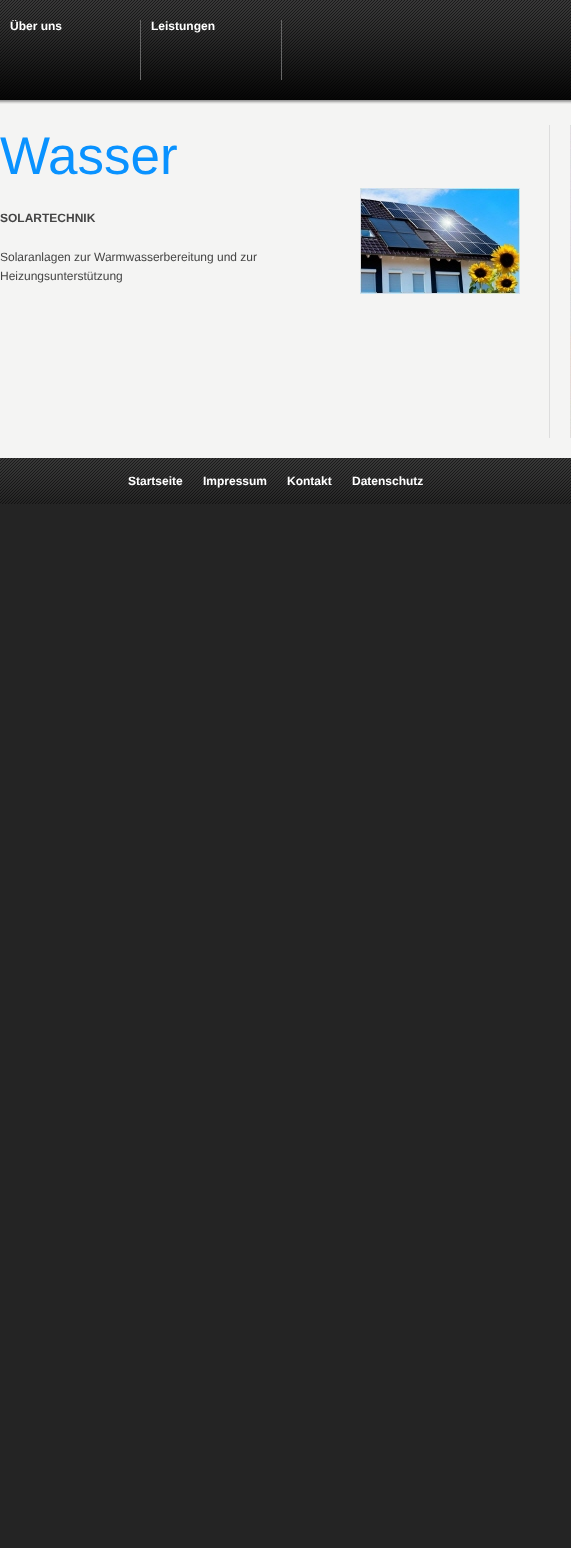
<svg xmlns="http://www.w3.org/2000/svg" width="571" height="1548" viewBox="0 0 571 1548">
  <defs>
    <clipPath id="clip1"><rect x="0" y="20" width="140" height="60"/></clipPath>
  </defs>
  <rect width="100%" height="100%" fill="#242424"/>
  <image x="0" y="0" width="571" height="100" href="img1.png"/>
  <rect x="140" y="20" width="1" height="60" fill="#666666"/>
  <g clip-path="url(#clip1)">
    <text x="10" y="30" font-family="Liberation Sans" font-size="12" font-weight="bold" fill="#ffffff">Über uns</text>
  </g>
  <rect x="281" y="20" width="1" height="60" fill="#666666"/>
  <text x="151" y="30" font-family="Liberation Sans" font-size="12" font-weight="bold" fill="#ffffff">Leistungen</text>
  <image x="0" y="100" width="571" height="5" href="img2.png"/>
  <rect x="0" y="105" width="571" height="353" fill="#f4f4f3"/>
  <text x="0" y="174" font-family="Liberation Sans" font-size="53" fill="#0992ff">Wasser</text>
  <text x="0" y="222" font-family="Liberation Sans" font-size="12" font-weight="bold" fill="#444444">SOLARTECHNIK</text>
  <text x="0" y="261" font-family="Liberation Sans" font-size="12" fill="#444444">Solaranlagen zur Warmwasserbereitung und zur</text>
  <text x="0" y="280" font-family="Liberation Sans" font-size="12" fill="#444444">Heizungsunterstützung</text>
  <image x="360" y="188" width="160" height="106" href="img3.png"/>
  <rect x="549" y="125" width="1" height="313" fill="#dddddd"/>
  <image x="570" y="125" width="1" height="153" href="img4.png"/>
  <image x="570" y="278" width="1" height="160" href="img5.png"/>
  <image x="0" y="458" width="571" height="46" href="img6.png"/>
  <text x="128" y="485" font-family="Liberation Sans" font-size="12" font-weight="bold" fill="#ffffff">Startseite</text>
  <text x="203" y="485" font-family="Liberation Sans" font-size="12" font-weight="bold" fill="#ffffff">Impressum</text>
  <text x="287" y="485" font-family="Liberation Sans" font-size="12" font-weight="bold" fill="#ffffff">Kontakt</text>
  <text x="352" y="485" font-family="Liberation Sans" font-size="12" font-weight="bold" fill="#ffffff">Datenschutz</text>
</svg>
